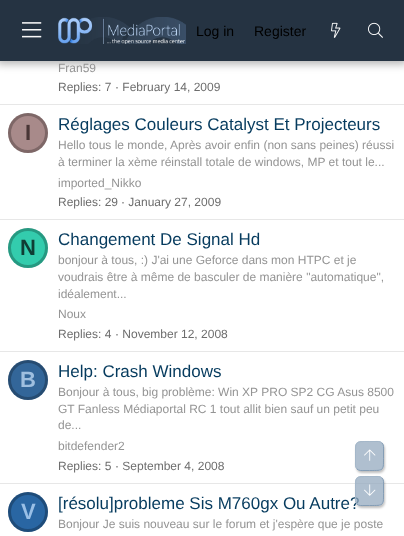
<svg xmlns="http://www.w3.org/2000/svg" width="404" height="536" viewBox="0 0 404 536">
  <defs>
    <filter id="blur1" x="-50%" y="-200%" width="200%" height="500%"><feGaussianBlur stdDeviation="4"/></filter>
    <clipPath id="clip1"><path d="M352 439H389V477H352ZM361 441H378C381.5 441 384 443.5 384 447V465C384 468.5 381.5 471 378 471H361C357.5 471 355 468.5 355 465V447C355 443.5 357.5 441 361 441Z" clip-rule="evenodd"/></clipPath>
    <filter id="blur2" x="-50%" y="-200%" width="200%" height="500%"><feGaussianBlur stdDeviation="1"/></filter>
    <clipPath id="clip2"><path d="M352 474H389V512H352ZM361 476H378C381.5 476 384 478.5 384 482V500C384 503.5 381.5 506 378 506H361C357.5 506 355 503.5 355 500V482C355 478.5 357.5 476 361 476Z" clip-rule="evenodd"/></clipPath>
  </defs>
  <rect width="100%" height="100%" fill="#ffffff"/>
  <rect x="-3" y="-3" width="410" height="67" fill="#000000" fill-opacity="0.3" filter="url(#blur1)"/>
  <rect x="0" y="0" width="404" height="61" fill="#253342"/>
  <image x="22" y="22" width="20" height="16" href="img1.png"/>
  <image x="58" y="17" width="128" height="27" href="img2.png"/>
  <text x="196" y="36" font-family="Liberation Sans" font-size="14" fill="#000000">Log in</text>
  <text x="254" y="36" font-family="Liberation Sans" font-size="14" fill="#000000">Register</text>
  <image x="331" y="22" width="10" height="16" href="img3.png"/>
  <image x="368" y="22" width="15" height="16" href="img4.png"/>
  <text x="58" y="72" font-family="Liberation Sans" font-size="12" fill="#949494">Fran59</text>
  <text x="58" y="91" font-family="Liberation Sans" font-size="12" fill="#6d6d6d">Replies: 7</text>
  <text x="115" y="91" font-family="Liberation Sans" font-size="12" fill="#6d6d6d">· February 14, 2009</text>
  <rect x="0" y="104" width="404" height="1" fill="#e7e7e7"/>
  <circle cx="28" cy="133" r="20" fill="#a88a8a"/>
  <circle cx="28" cy="133" r="18.5" fill="none" stroke="#000000" stroke-opacity="0.25" stroke-width="3"/>
  <text x="25" y="140" font-family="Liberation Sans" font-size="22" font-weight="bold" fill="#493636">I</text>
  <text x="58" y="130" font-family="Liberation Sans" font-size="17" fill="#063b5e">Réglages Couleurs Catalyst Et Projecteurs</text>
  <text x="58" y="149" font-family="Liberation Sans" font-size="12" fill="#949494">Hello tous le monde,</text>
  <text x="170" y="149" font-family="Liberation Sans" font-size="12" fill="#949494">Après avoir enfin (non sans peines) réussi</text>
  <text x="58" y="166" font-family="Liberation Sans" font-size="12" fill="#949494">à terminer la xème réinstall totale de windows, MP et tout le...</text>
  <text x="58" y="187" font-family="Liberation Sans" font-size="12" fill="#949494">imported_Nikko</text>
  <text x="58" y="206" font-family="Liberation Sans" font-size="12" fill="#6d6d6d">Replies: 29</text>
  <text x="121" y="206" font-family="Liberation Sans" font-size="12" fill="#6d6d6d">· January 27, 2009</text>
  <rect x="0" y="219" width="404" height="1" fill="#e7e7e7"/>
  <circle cx="28" cy="248" r="20" fill="#33ccad"/>
  <circle cx="28" cy="248" r="18.5" fill="none" stroke="#000000" stroke-opacity="0.25" stroke-width="3"/>
  <text x="20" y="255" font-family="Liberation Sans" font-size="22" font-weight="bold" fill="#0f3d34">N</text>
  <text x="58" y="245" font-family="Liberation Sans" font-size="17" fill="#063b5e">Changement De Signal Hd</text>
  <text x="58" y="264" font-family="Liberation Sans" font-size="12" fill="#949494">bonjour à tous, :) J'ai une Geforce dans mon HTPC et je</text>
  <text x="58" y="281" font-family="Liberation Sans" font-size="12" fill="#949494">voudrais être à même de basculer de manière "automatique",</text>
  <text x="58" y="298" font-family="Liberation Sans" font-size="12" fill="#949494">idéalement...</text>
  <text x="58" y="318" font-family="Liberation Sans" font-size="12" fill="#949494">Noux</text>
  <text x="58" y="338" font-family="Liberation Sans" font-size="12" fill="#6d6d6d">Replies: 4</text>
  <text x="115" y="338" font-family="Liberation Sans" font-size="12" fill="#6d6d6d">· November 12, 2008</text>
  <rect x="0" y="351" width="404" height="1" fill="#e7e7e7"/>
  <circle cx="28" cy="380" r="20" fill="#336699"/>
  <circle cx="28" cy="380" r="18.5" fill="none" stroke="#000000" stroke-opacity="0.25" stroke-width="3"/>
  <text x="20" y="387" font-family="Liberation Sans" font-size="22" font-weight="bold" fill="#9fbfdf">B</text>
  <text x="58" y="377" font-family="Liberation Sans" font-size="17" fill="#063b5e">Help: Crash Windows</text>
  <text x="58" y="396" font-family="Liberation Sans" font-size="12" fill="#949494">Bonjour à tous, big problème: Win XP PRO SP2 CG Asus 8500</text>
  <text x="58" y="413" font-family="Liberation Sans" font-size="12" fill="#949494">GT Fanless Médiaportal RC 1 tout allit bien sauf un petit peu</text>
  <text x="58" y="429" font-family="Liberation Sans" font-size="12" fill="#949494">de...</text>
  <text x="58" y="450" font-family="Liberation Sans" font-size="12" fill="#949494">bitdefender2</text>
  <text x="58" y="470" font-family="Liberation Sans" font-size="12" fill="#6d6d6d">Replies: 5</text>
  <text x="115" y="470" font-family="Liberation Sans" font-size="12" fill="#6d6d6d">· September 4, 2008</text>
  <rect x="0" y="483" width="404" height="1" fill="#e7e7e7"/>
  <circle cx="28" cy="512" r="20" fill="#2966a3"/>
  <circle cx="28" cy="512" r="18.5" fill="none" stroke="#000000" stroke-opacity="0.25" stroke-width="3"/>
  <text x="21" y="519" font-family="Liberation Sans" font-size="22" font-weight="bold" fill="#99bfe6">V</text>
  <text x="58" y="509" font-family="Liberation Sans" font-size="17" fill="#063b5e">[résolu]probleme Sis M760gx Ou Autre?</text>
  <text x="58" y="528" font-family="Liberation Sans" font-size="12" fill="#949494">Bonjour Je suis nouveau sur le forum et j'espère que je poste</text>
  <g clip-path="url(#clip1)">
    <rect x="356" y="443" width="29" height="30" rx="6" fill="#000000" fill-opacity="0.25" filter="url(#blur2)"/>
  </g>
  <rect x="355" y="441" width="29" height="30" rx="6" fill="#94aabf" fill-opacity="0.75"/>
  <path d="M382 443C384 445 383.5 447.5 383.5 450V456C383.5 471 384.5 470.5 369.5 470.5H364C361.5 470.5 359 471 357 469" fill="none" stroke="#849db5"/>
  <path d="M357 469C355 467 355.5 464.5 355.5 462V456C355.5 441 354.5 441.5 369.5 441.5H375C377.5 441.5 380 441 382 443" fill="none" stroke="#a4b7c9"/>
  <image x="364" y="449" width="12" height="12" href="img5.png"/>
  <g clip-path="url(#clip2)">
    <rect x="356" y="478" width="29" height="30" rx="6" fill="#000000" fill-opacity="0.25" filter="url(#blur2)"/>
  </g>
  <rect x="355" y="476" width="29" height="30" rx="6" fill="#94aabf" fill-opacity="0.75"/>
  <path d="M382 478C384 480 383.5 482.5 383.5 485V491C383.5 506 384.5 505.5 369.5 505.5H364C361.5 505.5 359 506 357 504" fill="none" stroke="#849db5"/>
  <path d="M357 504C355 502 355.5 499.5 355.5 497V491C355.5 476 354.5 476.5 369.5 476.5H375C377.5 476.5 380 476 382 478" fill="none" stroke="#a4b7c9"/>
  <image x="364" y="484" width="12" height="12" href="img6.png"/>
</svg>
